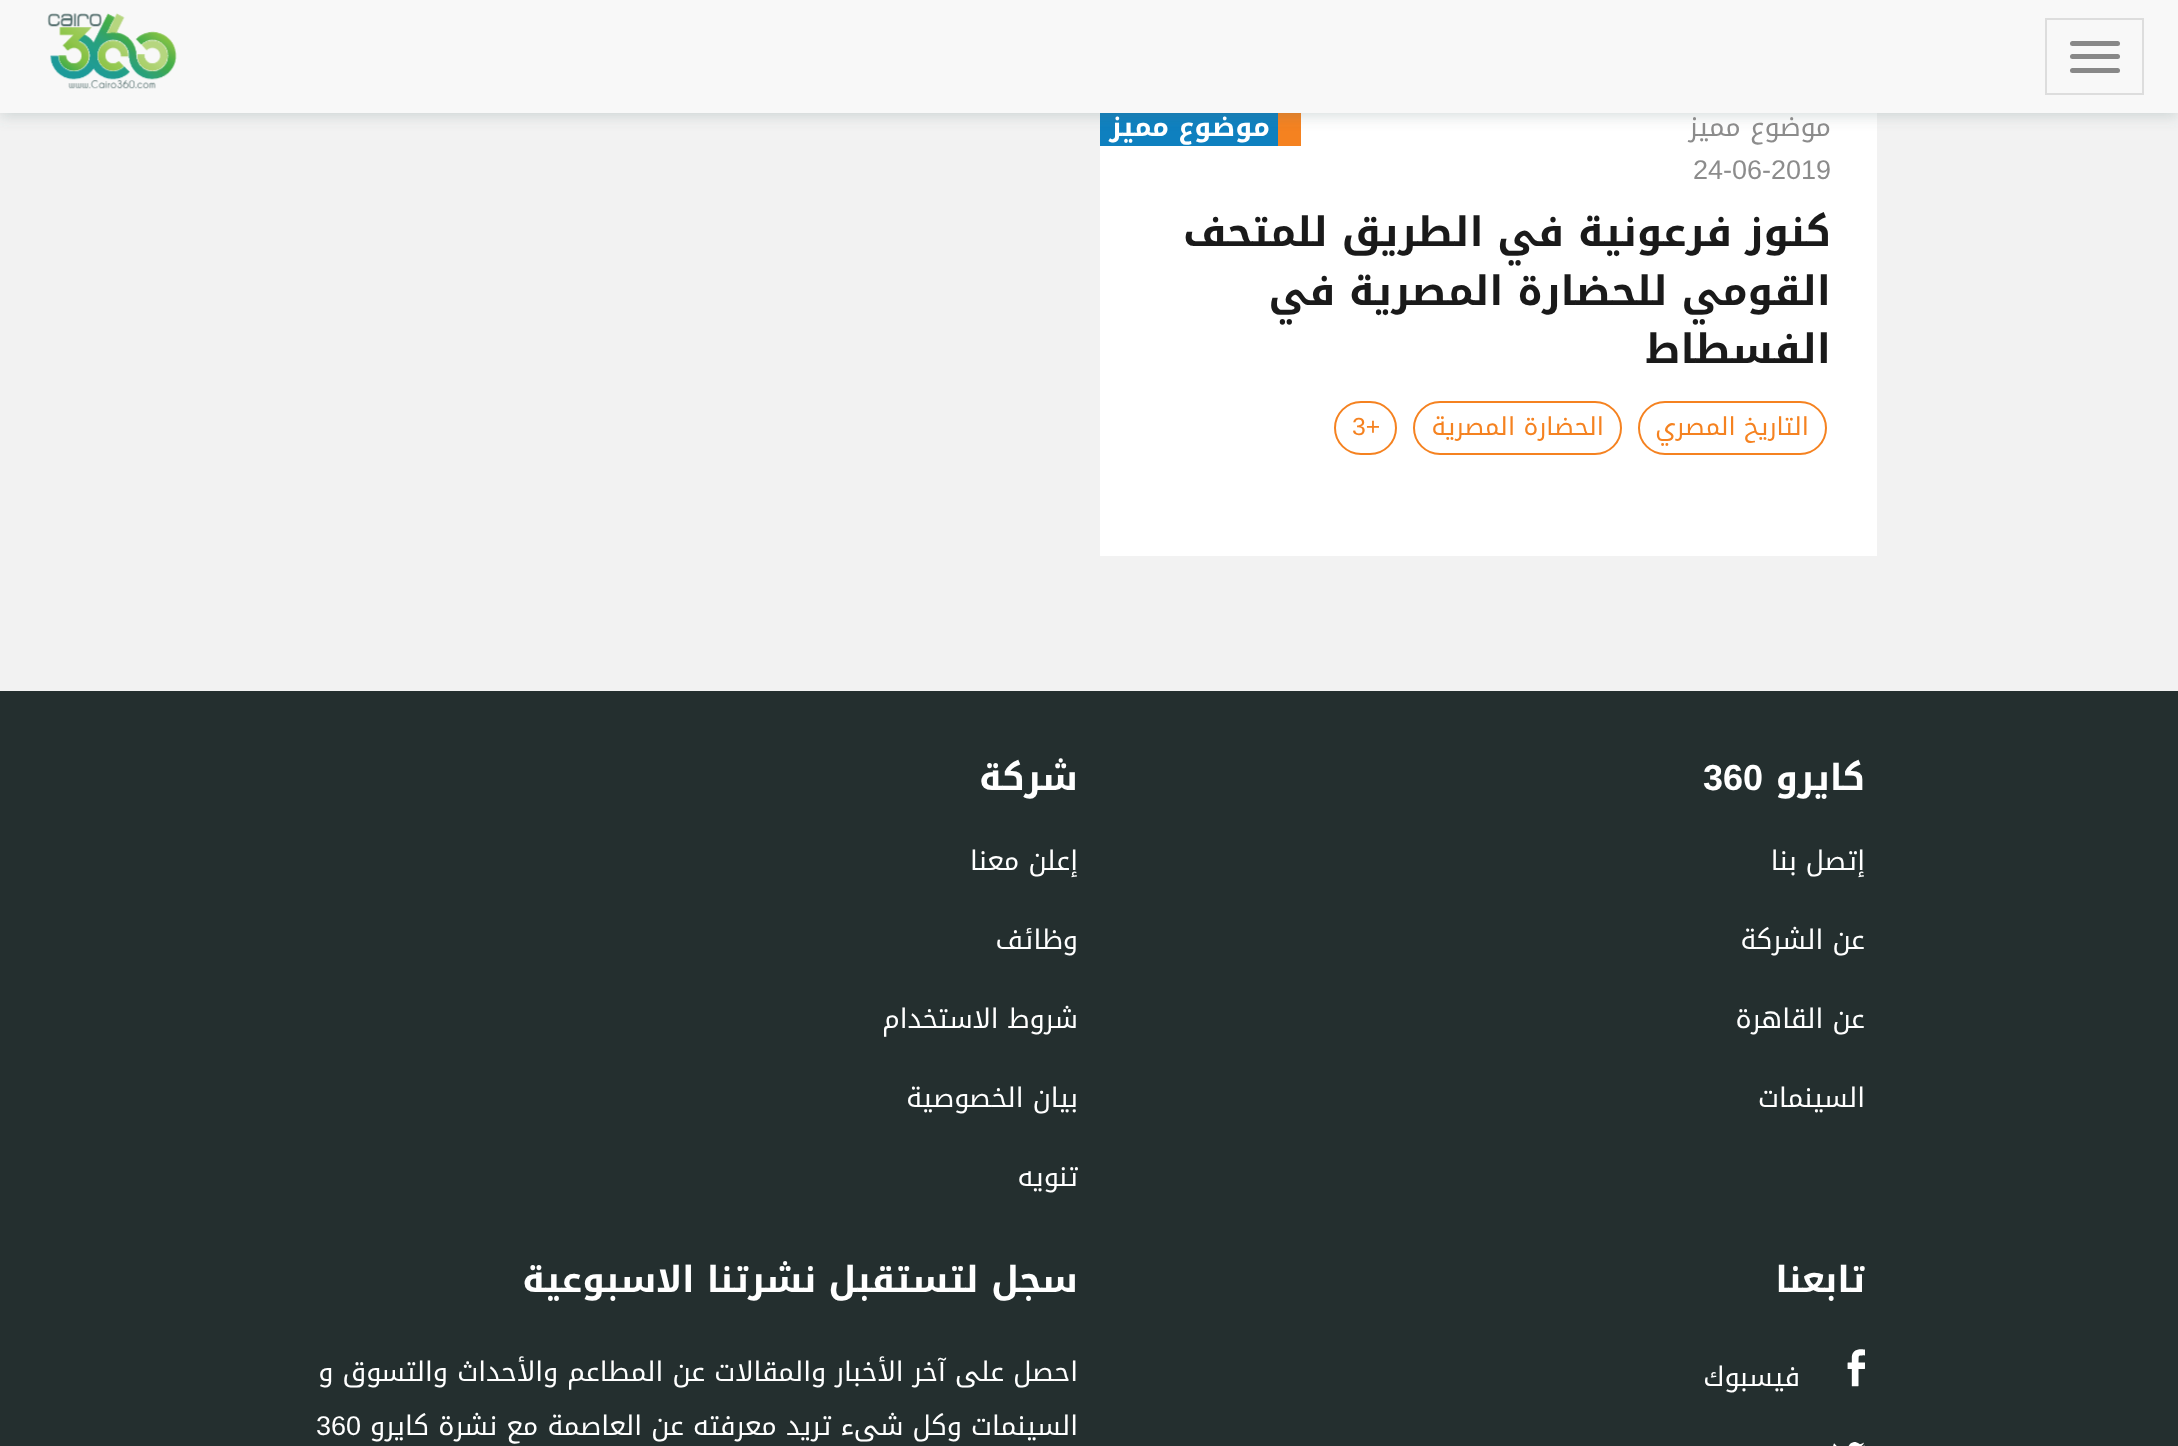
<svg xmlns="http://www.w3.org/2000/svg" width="2178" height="1446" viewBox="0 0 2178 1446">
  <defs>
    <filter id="blur1" x="-50%" y="-200%" width="200%" height="500%"><feGaussianBlur stdDeviation="7"/></filter>
  </defs>
  <rect width="100%" height="100%" fill="#f2f2f2"/>
  <rect x="1100" y="113" width="777" height="443" fill="#ffffff"/>
  <rect x="1278" y="113" width="23" height="33" fill="#f58220"/>
  <rect x="1100" y="113" width="178" height="33" fill="#0e80bf"/>
  <rect x="0" y="5" width="2178" height="112" fill="#55706f" fill-opacity="0.21" filter="url(#blur1)"/>
  <rect x="0" y="0" width="2178" height="113" fill="#f8f8f8"/>
  <rect x="2046" y="19" width="97" height="75" fill="none" stroke="#dddddd" stroke-width="2"/>
  <rect x="2070" y="41" width="50" height="5" rx="2.5" fill="#888888"/>
  <rect x="2070" y="54" width="50" height="5" rx="2.5" fill="#888888"/>
  <rect x="2070" y="68" width="50" height="5" rx="2.5" fill="#888888"/>
  <image x="47" y="13" width="130" height="76" href="img1.png"/>
  <text x="1270" y="136" font-family="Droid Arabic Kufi" font-size="27" font-weight="bold" direction="rtl" fill="#ffffff">موضوع مميز</text>
  <text x="1831" y="136" font-family="Droid Arabic Kufi" font-size="27" direction="rtl" fill="#8c8c8c">موضوع مميز</text>
  <text x="1693" y="179" font-family="Liberation Sans" font-size="27" fill="#8c8c8c">24-06-2019</text>
  <text x="1831" y="246" font-family="Droid Arabic Kufi" font-size="40.5" font-weight="bold" direction="rtl" fill="#1a1a1a">كنوز فرعونية في الطريق للمتحف</text>
  <text x="1831" y="305" font-family="Droid Arabic Kufi" font-size="40.5" font-weight="bold" direction="rtl" fill="#1a1a1a">القومي للحضارة المصرية في</text>
  <text x="1831" y="363" font-family="Droid Arabic Kufi" font-size="40.5" font-weight="bold" direction="rtl" fill="#1a1a1a">الفسطاط</text>
  <rect x="1639" y="402" width="187" height="52" rx="26" fill="none" stroke="#f58220" stroke-width="2"/>
  <text x="1809" y="435" font-family="Droid Arabic Kufi" font-size="24.75" direction="rtl" fill="#f58220">التاريخ المصري</text>
  <rect x="1414" y="402" width="207" height="52" rx="26" fill="none" stroke="#f58220" stroke-width="2"/>
  <text x="1604" y="435" font-family="Droid Arabic Kufi" font-size="24.75" direction="rtl" fill="#f58220">الحضارة المصرية</text>
  <rect x="1335" y="402" width="61" height="52" rx="26" fill="none" stroke="#f58220" stroke-width="2"/>
  <text x="1352" y="435" font-family="Liberation Sans" font-size="24.75" fill="#f58220">3+</text>
  <rect x="0" y="691" width="2178" height="755" fill="#242f2f"/>
  <text x="1865" y="790" font-family="Droid Arabic Kufi" font-size="36" font-weight="bold" direction="rtl" fill="#ffffff">كايرو</text>
  <text x="1703" y="790" font-family="Liberation Sans" font-size="36" font-weight="bold" fill="#ffffff">360</text>
  <text x="1865" y="870" font-family="Droid Arabic Kufi" font-size="27" direction="rtl" fill="#ffffff">إتصل بنا</text>
  <text x="1865" y="949" font-family="Droid Arabic Kufi" font-size="27" direction="rtl" fill="#ffffff">عن الشركة</text>
  <text x="1865" y="1028" font-family="Droid Arabic Kufi" font-size="27" direction="rtl" fill="#ffffff">عن القاهرة</text>
  <text x="1865" y="1107" font-family="Droid Arabic Kufi" font-size="27" direction="rtl" fill="#ffffff">السينمات</text>
  <text x="1078" y="790" font-family="Droid Arabic Kufi" font-size="36" font-weight="bold" direction="rtl" fill="#ffffff">شركة</text>
  <text x="1078" y="870" font-family="Droid Arabic Kufi" font-size="27" direction="rtl" fill="#ffffff">إعلن معنا</text>
  <text x="1078" y="949" font-family="Droid Arabic Kufi" font-size="27" direction="rtl" fill="#ffffff">وظائف</text>
  <text x="1078" y="1028" font-family="Droid Arabic Kufi" font-size="27" direction="rtl" fill="#ffffff">شروط الاستخدام</text>
  <text x="1078" y="1107" font-family="Droid Arabic Kufi" font-size="27" direction="rtl" fill="#ffffff">بيان الخصوصية</text>
  <text x="1078" y="1186" font-family="Droid Arabic Kufi" font-size="27" direction="rtl" fill="#ffffff">تنويه</text>
  <text x="1865" y="1292" font-family="Droid Arabic Kufi" font-size="36" font-weight="bold" direction="rtl" fill="#ffffff">تابعنا</text>
  <image x="1847" y="1349" width="18" height="38" href="img2.png"/>
  <text x="1800" y="1386" font-family="Droid Arabic Kufi" font-size="27" direction="rtl" fill="#ffffff">فيسبوك</text>
  <image x="1833" y="1442" width="32" height="4" href="img3.png"/>
  <text x="1078" y="1292" font-family="Droid Arabic Kufi" font-size="36" font-weight="bold" direction="rtl" fill="#ffffff">سجل لتستقبل نشرتنا الاسبوعية</text>
  <text x="1078" y="1381" font-family="Droid Arabic Kufi" font-size="27" direction="rtl" fill="#ffffff">احصل على آخر الأخبار والمقالات عن المطاعم والأحداث والتسوق و</text>
  <text x="1078" y="1435" font-family="Droid Arabic Kufi" font-size="27" direction="rtl" fill="#ffffff">السينمات وكل شىء تريد معرفته عن العاصمة مع نشرة كايرو</text>
  <text x="316" y="1435" font-family="Liberation Sans" font-size="27" fill="#ffffff">360</text>
</svg>
